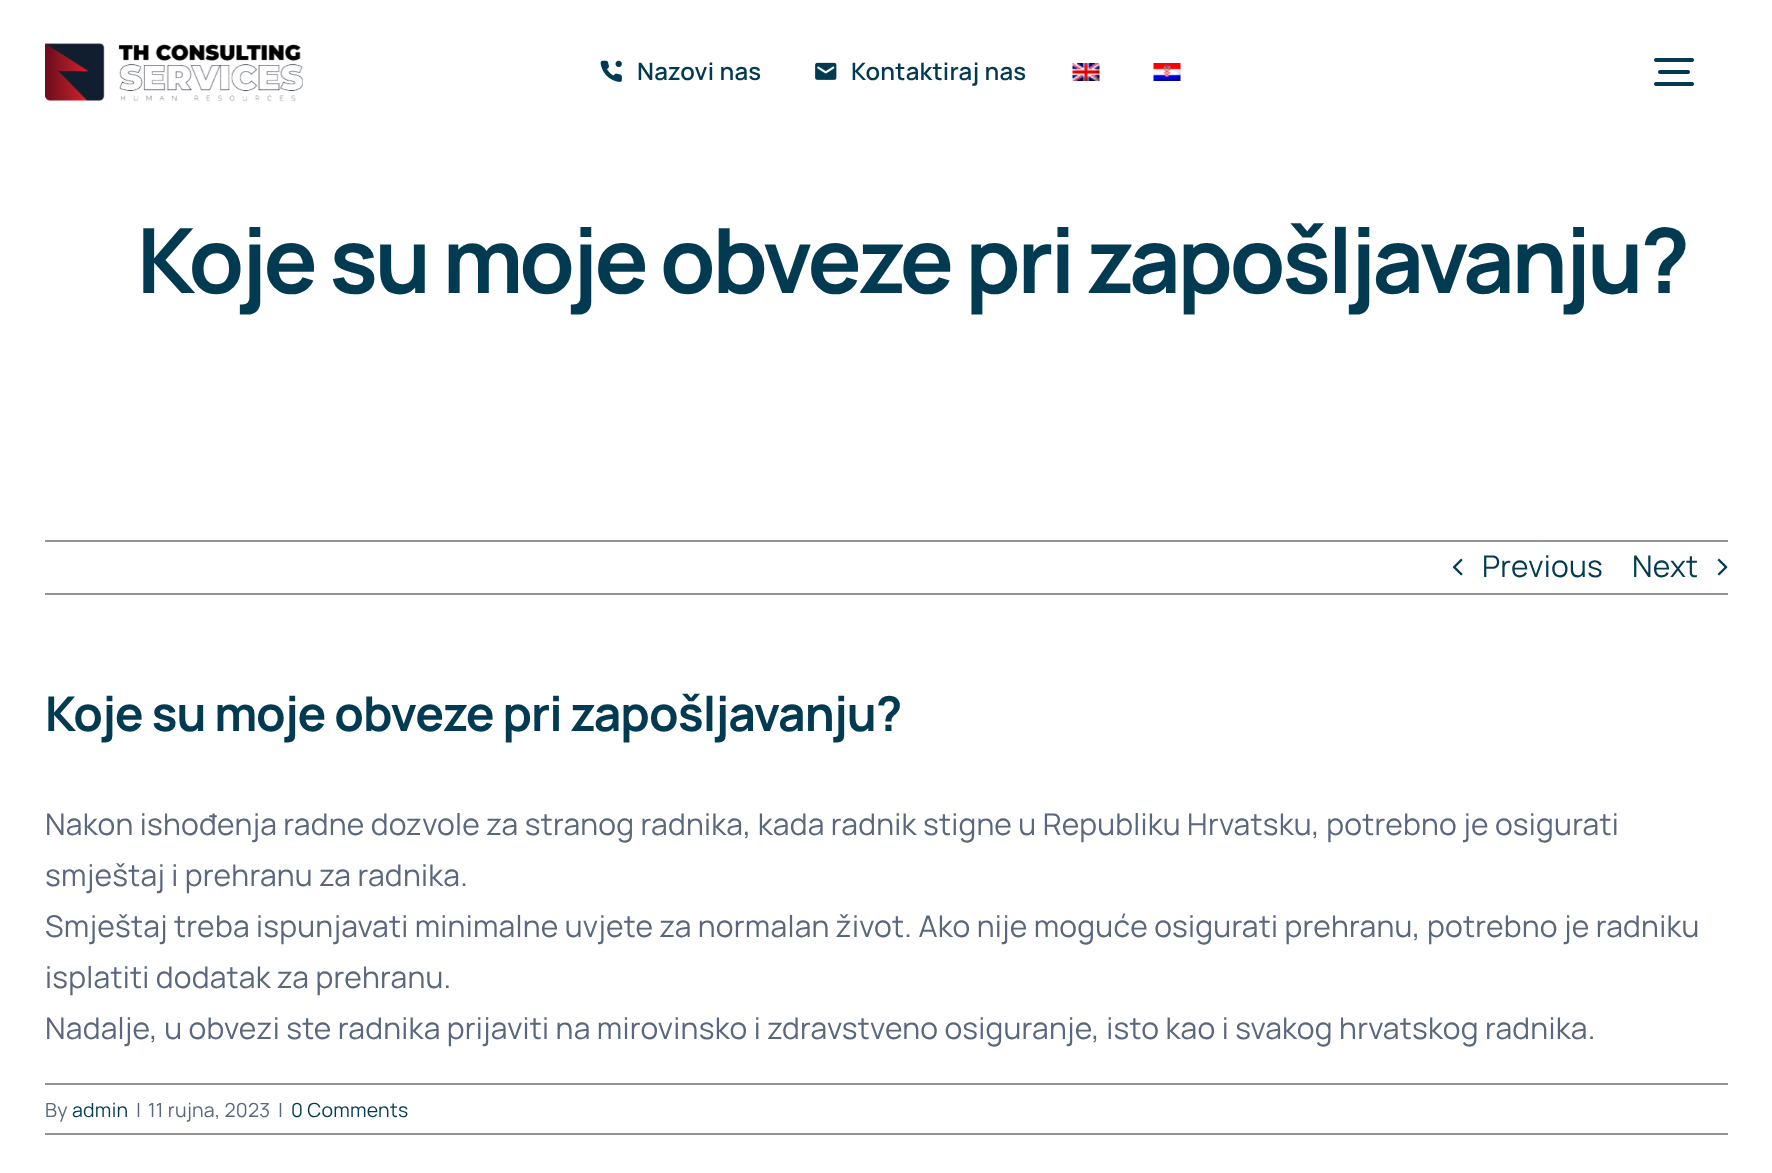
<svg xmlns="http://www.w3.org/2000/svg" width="1772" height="1173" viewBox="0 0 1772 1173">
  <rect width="100%" height="100%" fill="#ffffff"/>
  <image x="45" y="43" width="258" height="59" href="img1.png"/>
  <image x="600" y="60" width="22" height="22" href="img2.png"/>
  <text x="637" y="80" font-family="Manrope" font-size="24" font-weight="600" letter-spacing="0.25" fill="#023a51">Nazovi nas</text>
  <image x="815" y="62" width="22" height="18" href="img3.png"/>
  <text x="851" y="80" font-family="Manrope" font-size="24" font-weight="600" letter-spacing="0.25" fill="#023a51">Kontaktiraj nas</text>
  <image x="1072" y="63" width="28" height="18" href="img4.png"/>
  <image x="1153" y="63" width="28" height="18" href="img5.png"/>
  <image x="1654" y="58" width="40" height="28" href="img6.png"/>
  <text x="137" y="293" font-family="Manrope" font-size="90" font-weight="bold" letter-spacing="-3.25" fill="#023a51">Koje su moje obveze pri zapošljavanju?</text>
  <rect x="45" y="540" width="1683" height="2" fill="#969291"/>
  <rect x="45" y="593" width="1683" height="2" fill="#969291"/>
  <image x="1452" y="558" width="11" height="18" href="img7.png"/>
  <text x="1482" y="577" font-family="Manrope" font-size="30" letter-spacing="0.24" fill="#023a51">Previous</text>
  <text x="1632" y="577" font-family="Manrope" font-size="30" letter-spacing="0.24" fill="#023a51">Next</text>
  <image x="1717" y="558" width="11" height="18" href="img8.png"/>
  <text x="45" y="731" font-family="Manrope" font-size="48" font-weight="bold" letter-spacing="-0.95" fill="#023a51">Koje su moje obveze pri zapošljavanju?</text>
  <text x="45" y="835" font-family="Manrope" font-size="30" letter-spacing="0.24" fill="#59667d">Nakon ishođenja radne dozvole za stranog radnika, kada radnik stigne u Republiku Hrvatsku, potrebno je osigurati</text>
  <text x="45" y="886" font-family="Manrope" font-size="30" letter-spacing="0.24" fill="#59667d">smještaj i prehranu za radnika.</text>
  <text x="45" y="937" font-family="Manrope" font-size="30" letter-spacing="0.24" fill="#59667d">Smještaj treba ispunjavati minimalne uvjete za normalan život. Ako nije moguće osigurati prehranu, potrebno je radniku</text>
  <text x="45" y="988" font-family="Manrope" font-size="30" letter-spacing="0.24" fill="#59667d">isplatiti dodatak za prehranu.</text>
  <text x="45" y="1039" font-family="Manrope" font-size="30" letter-spacing="0.24" fill="#59667d">Nadalje, u obvezi ste radnika prijaviti na mirovinsko i zdravstveno osiguranje, isto kao i svakog hrvatskog radnika.</text>
  <rect x="45" y="1083" width="1683" height="2" fill="#969291"/>
  <rect x="45" y="1133" width="1683" height="2" fill="#969291"/>
  <text x="45" y="1117" font-family="Manrope" font-size="19.5" letter-spacing="0.24" fill="#59667d">By</text>
  <text x="72" y="1117" font-family="Manrope" font-size="19.5" letter-spacing="0.24" fill="#023a51">admin</text>
  <text x="136" y="1117" font-family="Manrope" font-size="19.5" letter-spacing="0.24" fill="#59667d">|</text>
  <text x="148" y="1117" font-family="Manrope" font-size="19.5" letter-spacing="0.24" fill="#59667d">11 rujna, 2023</text>
  <text x="278" y="1117" font-family="Manrope" font-size="19.5" letter-spacing="0.24" fill="#59667d">|</text>
  <text x="291" y="1117" font-family="Manrope" font-size="19.5" letter-spacing="0.24" fill="#023a51">0 Comments</text>
</svg>
